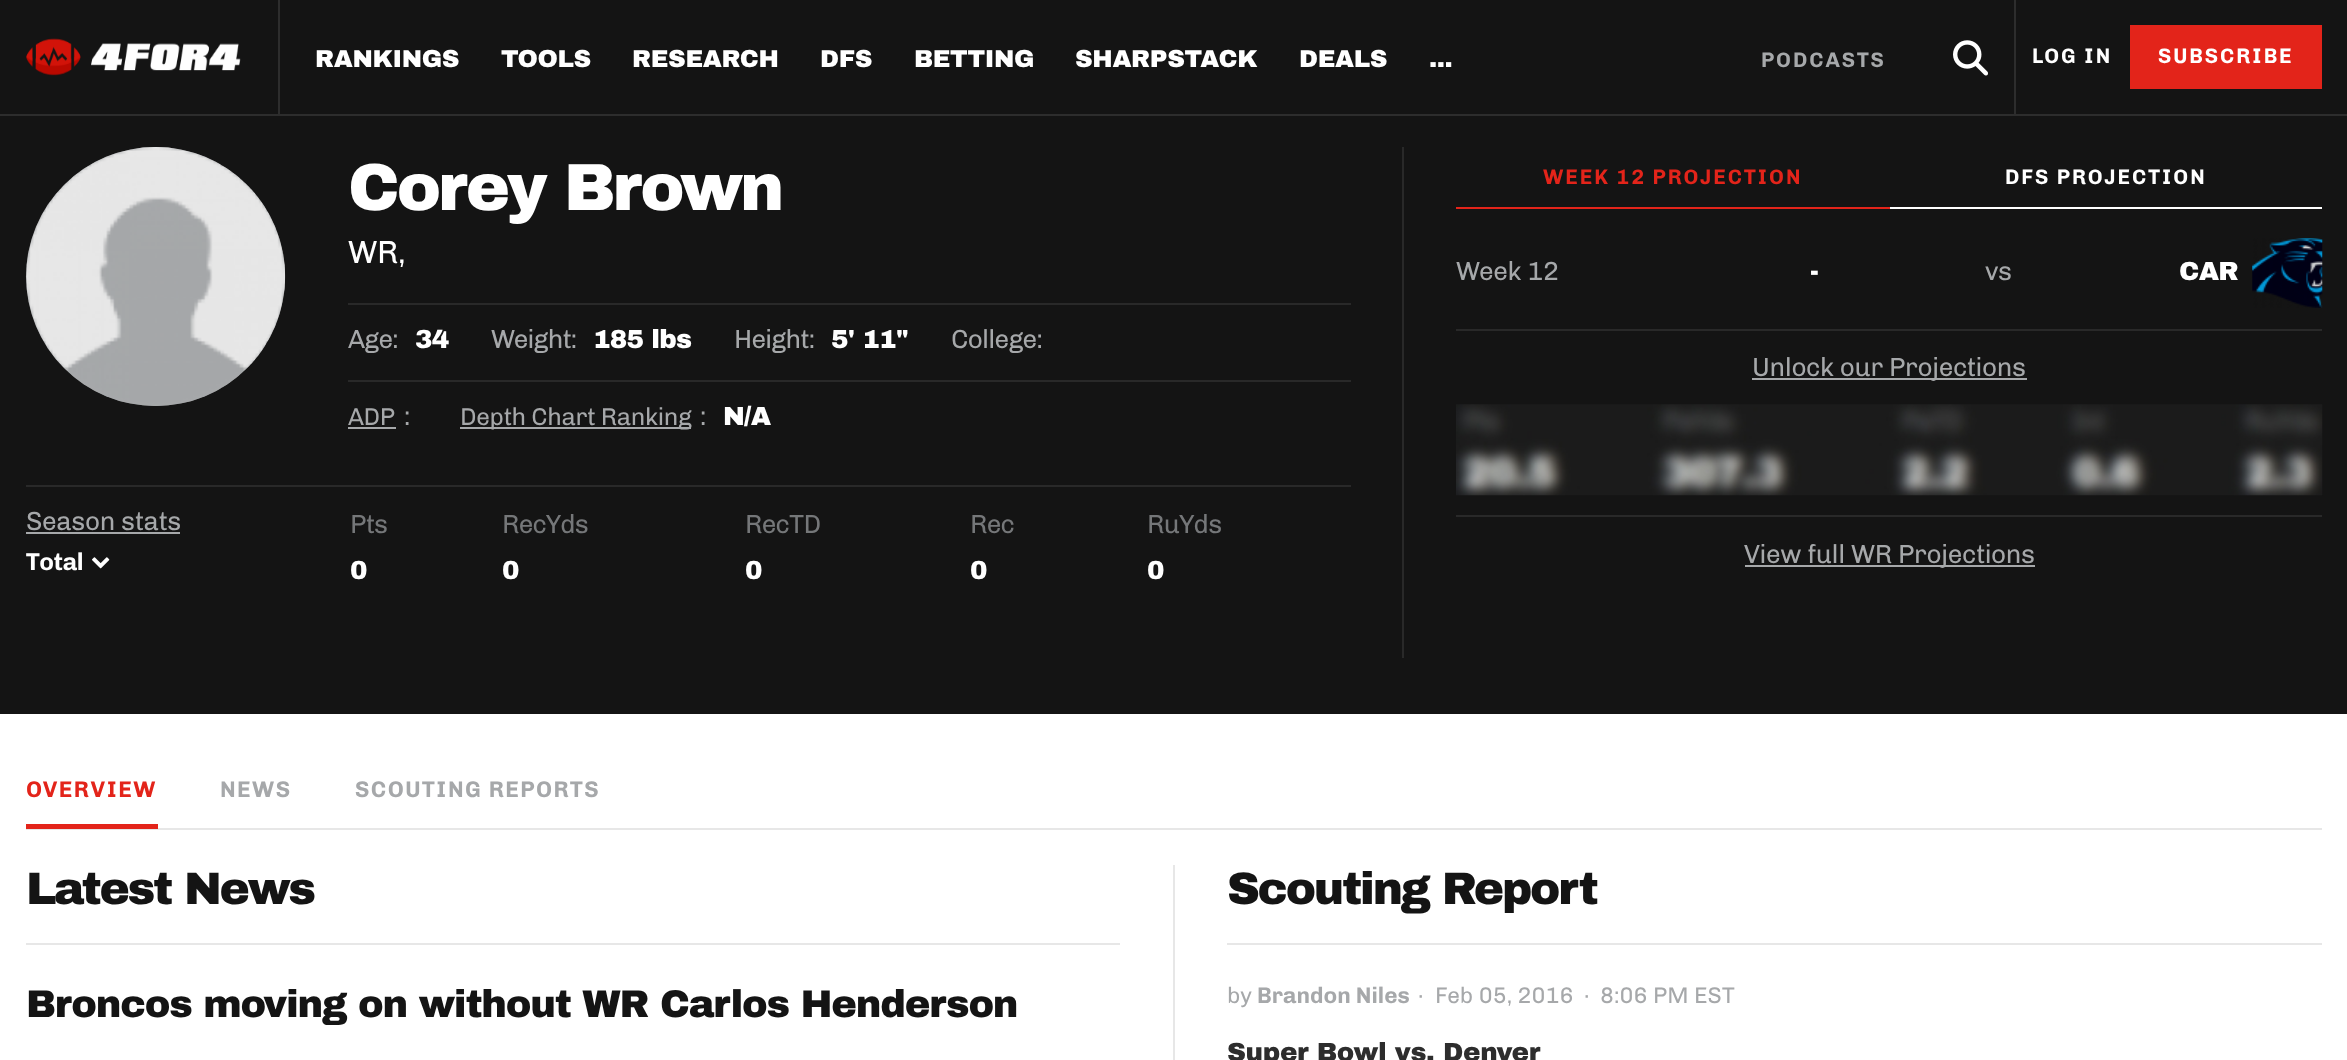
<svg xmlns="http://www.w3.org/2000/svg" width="2347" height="1060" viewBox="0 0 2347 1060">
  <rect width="100%" height="100%" fill="#ffffff"/>
  <rect x="0" y="0" width="2347" height="114" fill="#141414"/>
  <rect x="0" y="114" width="2347" height="2" fill="#2d2d2d"/>
  <image x="26" y="38" width="215" height="38" href="img1.png"/>
  <rect x="278" y="0" width="2" height="114" fill="#2d2d2d"/>
  <text x="315" y="67" font-family="archivo" font-size="24.5" font-weight="900" letter-spacing="-0.35" fill="#ffffff">RANKINGS</text>
  <text x="501" y="67" font-family="archivo" font-size="24.5" font-weight="900" letter-spacing="-0.35" fill="#ffffff">TOOLS</text>
  <text x="632" y="67" font-family="archivo" font-size="24.5" font-weight="900" letter-spacing="-0.35" fill="#ffffff">RESEARCH</text>
  <text x="820" y="67" font-family="archivo" font-size="24.5" font-weight="900" letter-spacing="-0.35" fill="#ffffff">DFS</text>
  <text x="914" y="67" font-family="archivo" font-size="24.5" font-weight="900" letter-spacing="-0.35" fill="#ffffff">BETTING</text>
  <text x="1075" y="67" font-family="archivo" font-size="24.5" font-weight="900" letter-spacing="-0.35" fill="#ffffff">SHARPSTACK</text>
  <text x="1299" y="67" font-family="archivo" font-size="24.5" font-weight="900" letter-spacing="-0.35" fill="#ffffff">DEALS</text>
  <text x="1429" y="67" font-family="archivo" font-size="24.5" font-weight="900" letter-spacing="-0.35" fill="#ffffff">...</text>
  <text x="1761" y="67" font-family="chivo" font-size="21" font-weight="bold" letter-spacing="1.9" fill="#a6a8aa">PODCASTS</text>
  <image x="1953" y="40" width="35" height="36" href="img2.png"/>
  <rect x="2014" y="0" width="2" height="116" fill="#2d2d2d"/>
  <text x="2032" y="63" font-family="chivo" font-size="21" font-weight="bold" letter-spacing="1.9" fill="#ffffff">LOG IN</text>
  <rect x="2130" y="25" width="192" height="64" fill="#e3241a"/>
  <text x="2158" y="63" font-family="chivo" font-size="21" font-weight="bold" letter-spacing="1.9" fill="#ffffff">SUBSCRIBE</text>
  <rect x="0" y="116" width="2347" height="598" fill="#141414"/>
  <circle cx="155.5" cy="276.5" r="129.5" fill="#a6a8aa"/>
  <image x="26" y="147" width="260" height="259" href="img3.png"/>
  <text x="348" y="210" font-family="archivo" font-size="66.5" font-weight="900" letter-spacing="-3" fill="#ffffff">Corey Brown</text>
  <text x="348" y="263" font-family="chivo" font-size="32" letter-spacing="-0.35" fill="#ffffff">WR,</text>
  <rect x="348" y="303" width="1003" height="2" fill="#292929"/>
  <text x="348" y="348" font-family="chivo" font-size="26.25" letter-spacing="-0.75" fill="#a6a8aa">Age:</text>
  <text x="415" y="348" font-family="archivo" font-size="26.25" font-weight="900" letter-spacing="-0.75" fill="#ffffff">34</text>
  <text x="491" y="348" font-family="chivo" font-size="26.25" letter-spacing="-0.75" fill="#a6a8aa">Weight:</text>
  <text x="593" y="348" font-family="archivo" font-size="26.25" font-weight="900" letter-spacing="-0.75" fill="#ffffff">185 lbs</text>
  <text x="734" y="348" font-family="chivo" font-size="26.25" letter-spacing="-0.75" fill="#a6a8aa">Height:</text>
  <text x="831" y="348" font-family="archivo" font-size="26.25" font-weight="900" letter-spacing="-0.75" fill="#ffffff">5' 11"</text>
  <text x="951" y="348" font-family="chivo" font-size="26.25" letter-spacing="-0.75" fill="#a6a8aa">College:</text>
  <rect x="348" y="380" width="1003" height="2" fill="#292929"/>
  <text x="348" y="425" font-family="chivo" font-size="24.5" letter-spacing="-0.35" fill="#a6a8aa">ADP</text>
  <rect x="348" y="427" width="48" height="2" fill="#a6a8aa"/>
  <text x="404" y="425" font-family="chivo" font-size="26.25" letter-spacing="-0.75" fill="#a6a8aa">:</text>
  <rect x="460" y="427" width="231" height="2" fill="#a6a8aa"/>
  <text x="460" y="425" font-family="chivo" font-size="24.5" letter-spacing="-0.35" fill="#a6a8aa">Depth Chart Ranking</text>
  <text x="700" y="425" font-family="chivo" font-size="26.25" letter-spacing="-0.75" fill="#a6a8aa">:</text>
  <text x="723" y="425" font-family="archivo" font-size="26.25" font-weight="900" letter-spacing="-0.75" fill="#ffffff">N/A</text>
  <rect x="26" y="485" width="1325" height="2" fill="#292929"/>
  <text x="26" y="530" font-family="chivo" font-size="26.25" letter-spacing="-0.35" fill="#a6a8aa">Season stats</text>
  <rect x="26" y="532" width="154" height="2" fill="#a6a8aa"/>
  <text x="26" y="570" font-family="chivo" font-size="24.5" font-weight="bold" letter-spacing="-0.35" fill="#ffffff">Total</text>
  <image x="92" y="557" width="18" height="12" href="img4.png"/>
  <text x="350" y="533" font-family="chivo" font-size="26.25" letter-spacing="-0.75" fill="#757779">Pts</text>
  <text x="502" y="533" font-family="chivo" font-size="26.25" letter-spacing="-0.75" fill="#757779">RecYds</text>
  <text x="745" y="533" font-family="chivo" font-size="26.25" letter-spacing="-0.75" fill="#757779">RecTD</text>
  <text x="970" y="533" font-family="chivo" font-size="26.25" letter-spacing="-0.75" fill="#757779">Rec</text>
  <text x="1147" y="533" font-family="chivo" font-size="26.25" letter-spacing="-0.75" fill="#757779">RuYds</text>
  <text x="350" y="579" font-family="archivo" font-size="26.25" font-weight="900" letter-spacing="-0.75" fill="#ffffff">0</text>
  <text x="502" y="579" font-family="archivo" font-size="26.25" font-weight="900" letter-spacing="-0.75" fill="#ffffff">0</text>
  <text x="745" y="579" font-family="archivo" font-size="26.25" font-weight="900" letter-spacing="-0.75" fill="#ffffff">0</text>
  <text x="970" y="579" font-family="archivo" font-size="26.25" font-weight="900" letter-spacing="-0.75" fill="#ffffff">0</text>
  <text x="1147" y="579" font-family="archivo" font-size="26.25" font-weight="900" letter-spacing="-0.75" fill="#ffffff">0</text>
  <rect x="1402" y="147" width="2" height="511" fill="#292929"/>
  <rect x="1456" y="207" width="434" height="2" fill="#e3241a"/>
  <text x="1543" y="184" font-family="chivo" font-size="21" font-weight="bold" letter-spacing="1.9" fill="#e3241a">WEEK 12 PROJECTION</text>
  <rect x="1890" y="207" width="432" height="2" fill="#ffffff"/>
  <text x="2005" y="184" font-family="chivo" font-size="21" font-weight="bold" letter-spacing="1.9" fill="#ffffff">DFS PROJECTION</text>
  <text x="1456" y="280" font-family="chivo" font-size="26.25" letter-spacing="-0.35" fill="#a6a8aa">Week 12</text>
  <text x="1810" y="280" font-family="archivo" font-size="26.25" font-weight="900" letter-spacing="-0.75" fill="#ffffff">-</text>
  <text x="1985" y="280" font-family="chivo" font-size="26.25" letter-spacing="-0.35" fill="#a6a8aa">vs</text>
  <text x="2179" y="280" font-family="archivo" font-size="26.25" font-weight="900" letter-spacing="-0.75" fill="#ffffff">CAR</text>
  <image x="2252" y="238" width="71" height="70" href="img5.png"/>
  <rect x="1456" y="329" width="866" height="2" fill="#292929"/>
  <rect x="1752" y="378" width="275" height="2" fill="#a6a8aa"/>
  <text x="1752" y="376" font-family="chivo" font-size="26.25" letter-spacing="-0.35" fill="#a6a8aa">Unlock our Projections</text>
  <image x="1456" y="404" width="867" height="92" href="img6.png"/>
  <rect x="1456" y="515" width="866" height="2" fill="#292929"/>
  <rect x="1745" y="565" width="290" height="2" fill="#a6a8aa"/>
  <text x="1744" y="563" font-family="chivo" font-size="26.25" letter-spacing="-0.35" fill="#a6a8aa">View full WR Projections</text>
  <rect x="26" y="828" width="2296" height="2" fill="#e7e7e7"/>
  <rect x="26" y="824" width="132" height="5" fill="#e3241a"/>
  <text x="26" y="797" font-family="chivo" font-size="22.75" font-weight="bold" letter-spacing="1.4" fill="#e3241a">OVERVIEW</text>
  <text x="220" y="797" font-family="chivo" font-size="22.75" font-weight="bold" letter-spacing="1.4" fill="#a6a8aa">NEWS</text>
  <text x="355" y="797" font-family="chivo" font-size="22.75" font-weight="bold" letter-spacing="1.4" fill="#a6a8aa">SCOUTING REPORTS</text>
  <rect x="1173" y="865" width="2" height="195" fill="#e7e7e7"/>
  <rect x="26" y="943" width="1094" height="2" fill="#e7e7e7"/>
  <text x="26" y="904" font-family="archivo" font-size="45.5" font-weight="900" letter-spacing="-2.25" fill="#141414">Latest News</text>
  <text x="26" y="1017" font-family="archivo" font-size="38.5" font-weight="900" letter-spacing="-1.2" fill="#141414">Broncos moving on without WR Carlos Henderson</text>
  <rect x="1227" y="943" width="1095" height="2" fill="#e7e7e7"/>
  <text x="1227" y="904" font-family="archivo" font-size="45.5" font-weight="900" letter-spacing="-2.25" fill="#141414">Scouting Report</text>
  <text x="1227" y="1003" font-family="chivo" font-size="22.75" fill="#a6a8aa">by</text>
  <text x="1257" y="1003" font-family="chivo" font-size="22.75" font-weight="bold" fill="#a6a8aa">Brandon Niles</text>
  <text x="1418" y="1003" font-family="chivo" font-size="22.75" fill="#a6a8aa">·</text>
  <text x="1435" y="1003" font-family="chivo" font-size="22.75" fill="#a6a8aa">Feb 05, 2016</text>
  <text x="1584" y="1003" font-family="chivo" font-size="22.75" fill="#a6a8aa">·</text>
  <text x="1600" y="1003" font-family="chivo" font-size="22.75" fill="#a6a8aa">8:06 PM EST</text>
  <text x="1227" y="1061" font-family="archivo" font-size="26.25" font-weight="900" letter-spacing="-0.35" fill="#2d2d2d">Super Bowl vs. Denver</text>
</svg>
